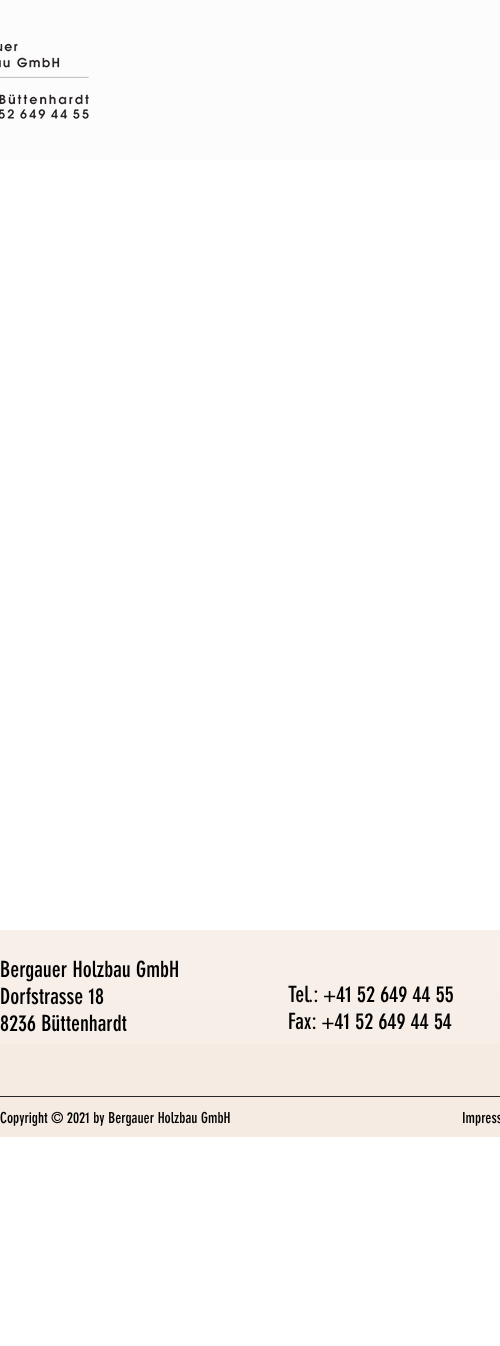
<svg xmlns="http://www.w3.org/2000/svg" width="500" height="1346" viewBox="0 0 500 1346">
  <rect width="100%" height="100%" fill="#ffffff"/>
  <rect x="0" y="0" width="500" height="160" fill="#fcfcfc"/>
  <image x="0" y="43" width="89" height="76" href="img1.png"/>
  <rect x="0" y="930" width="500" height="207" fill="#f5ebe3"/>
  <image x="0" y="930" width="500" height="114" href="img2.png"/>
  <text x="0" y="977" font-family="'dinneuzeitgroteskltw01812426'" font-size="22" fill="#000000">Bergauer Holzbau GmbH</text>
  <text x="0" y="1004" font-family="'dinneuzeitgroteskltw01812426'" font-size="22" fill="#000000">Dorfstrasse 18</text>
  <text x="0" y="1031" font-family="'dinneuzeitgroteskltw01812426'" font-size="22" fill="#000000">8236 Büttenhardt</text>
  <text x="288" y="1002" font-family="'dinneuzeitgroteskltw01812426'" font-size="22" fill="#000000">Tel.: +41 52 649 44 55</text>
  <text x="288" y="1029" font-family="'dinneuzeitgroteskltw01812426'" font-size="22" fill="#000000">Fax: +41 52 649 44 54</text>
  <rect x="0" y="1096" width="500" height="1" fill="#262626"/>
  <text x="0" y="1123" font-family="'dinneuzeitgroteskltw01812426'" font-size="15" fill="#000000">Copyright © 2021 by Bergauer Holzbau GmbH</text>
  <text x="462" y="1123" font-family="'dinneuzeitgroteskltw01812426'" font-size="15" fill="#000000">Impress</text>
</svg>
